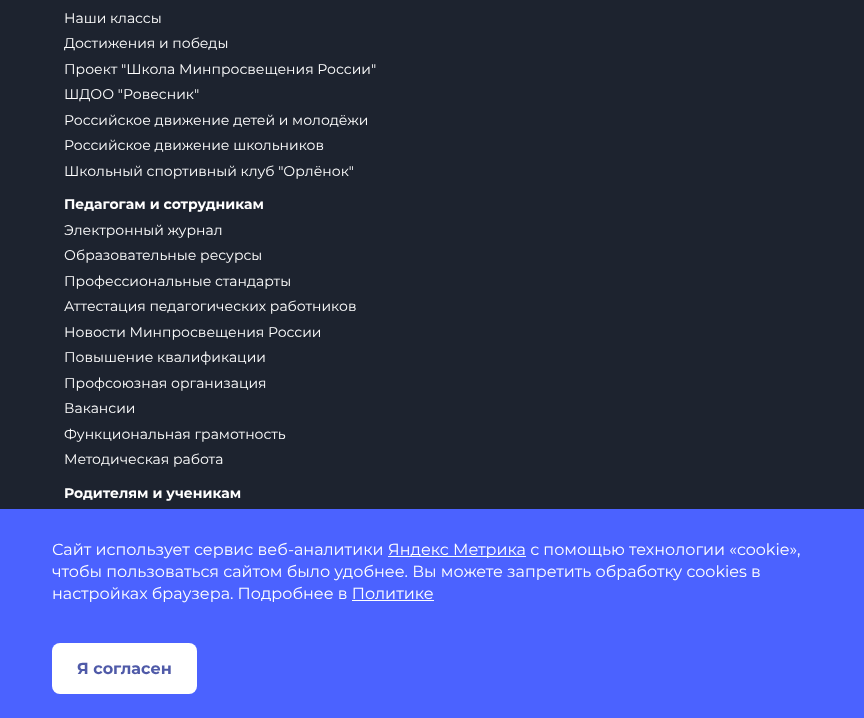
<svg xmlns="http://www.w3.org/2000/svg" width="864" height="718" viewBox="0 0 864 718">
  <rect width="100%" height="100%" fill="#1d232f"/>
  <text x="64" y="23" font-family="Montserrat" font-size="14" fill="#ffffff">Наши классы</text>
  <text x="64" y="48" font-family="Montserrat" font-size="14" fill="#ffffff">Достижения и победы</text>
  <text x="64" y="74" font-family="Montserrat" font-size="14" fill="#ffffff">Проект "Школа Минпросвещения России"</text>
  <text x="64" y="99" font-family="Montserrat" font-size="14" fill="#ffffff">ШДОО "Ровесник"</text>
  <text x="64" y="125" font-family="Montserrat" font-size="14" fill="#ffffff">Российское движение детей и молодёжи</text>
  <text x="64" y="150" font-family="Montserrat" font-size="14" fill="#ffffff">Российское движение школьников</text>
  <text x="64" y="176" font-family="Montserrat" font-size="14" fill="#ffffff">Школьный спортивный клуб "Орлёнок"</text>
  <text x="64" y="209" font-family="Montserrat" font-size="14" font-weight="bold" fill="#ffffff">Педагогам и сотрудникам</text>
  <text x="64" y="235" font-family="Montserrat" font-size="14" fill="#ffffff">Электронный журнал</text>
  <text x="64" y="260" font-family="Montserrat" font-size="14" fill="#ffffff">Образовательные ресурсы</text>
  <text x="64" y="286" font-family="Montserrat" font-size="14" fill="#ffffff">Профессиональные стандарты</text>
  <text x="64" y="311" font-family="Montserrat" font-size="14" fill="#ffffff">Аттестация педагогических работников</text>
  <text x="64" y="337" font-family="Montserrat" font-size="14" fill="#ffffff">Новости Минпросвещения России</text>
  <text x="64" y="362" font-family="Montserrat" font-size="14" fill="#ffffff">Повышение квалификации</text>
  <text x="64" y="388" font-family="Montserrat" font-size="14" fill="#ffffff">Профсоюзная организация</text>
  <text x="64" y="413" font-family="Montserrat" font-size="14" fill="#ffffff">Вакансии</text>
  <text x="64" y="439" font-family="Montserrat" font-size="14" fill="#ffffff">Функциональная грамотность</text>
  <text x="64" y="464" font-family="Montserrat" font-size="14" fill="#ffffff">Методическая работа</text>
  <text x="64" y="498" font-family="Montserrat" font-size="14" font-weight="bold" fill="#ffffff">Родителям и ученикам</text>
  <rect x="0" y="509" width="864" height="209" fill="#4b62ff"/>
  <text x="52" y="555" font-family="Montserrat" font-size="16" fill="#ffffff">Сайт использует сервис веб-аналитики</text>
  <rect x="388" y="556" width="138" height="1" fill="#ffffff"/>
  <text x="388" y="555" font-family="Montserrat" font-size="16" fill="#ffffff">Яндекс Метрика с помощью технологии «cookie»,</text>
  <text x="52" y="577" font-family="Montserrat" font-size="16" fill="#ffffff">чтобы пользоваться сайтом было удобнее. Вы можете запретить обработку cookies в</text>
  <text x="52" y="599" font-family="Montserrat" font-size="16" fill="#ffffff">настройках браузера. Подробнее в Политике</text>
  <rect x="352" y="600" width="82" height="1" fill="#ffffff"/>
  <rect x="52" y="643" width="145" height="51" rx="8" fill="#ffffff"/>
  <text x="77" y="674" font-family="Montserrat" font-size="16" font-weight="bold" fill="#4f5aa8">Я согласен</text>
</svg>
